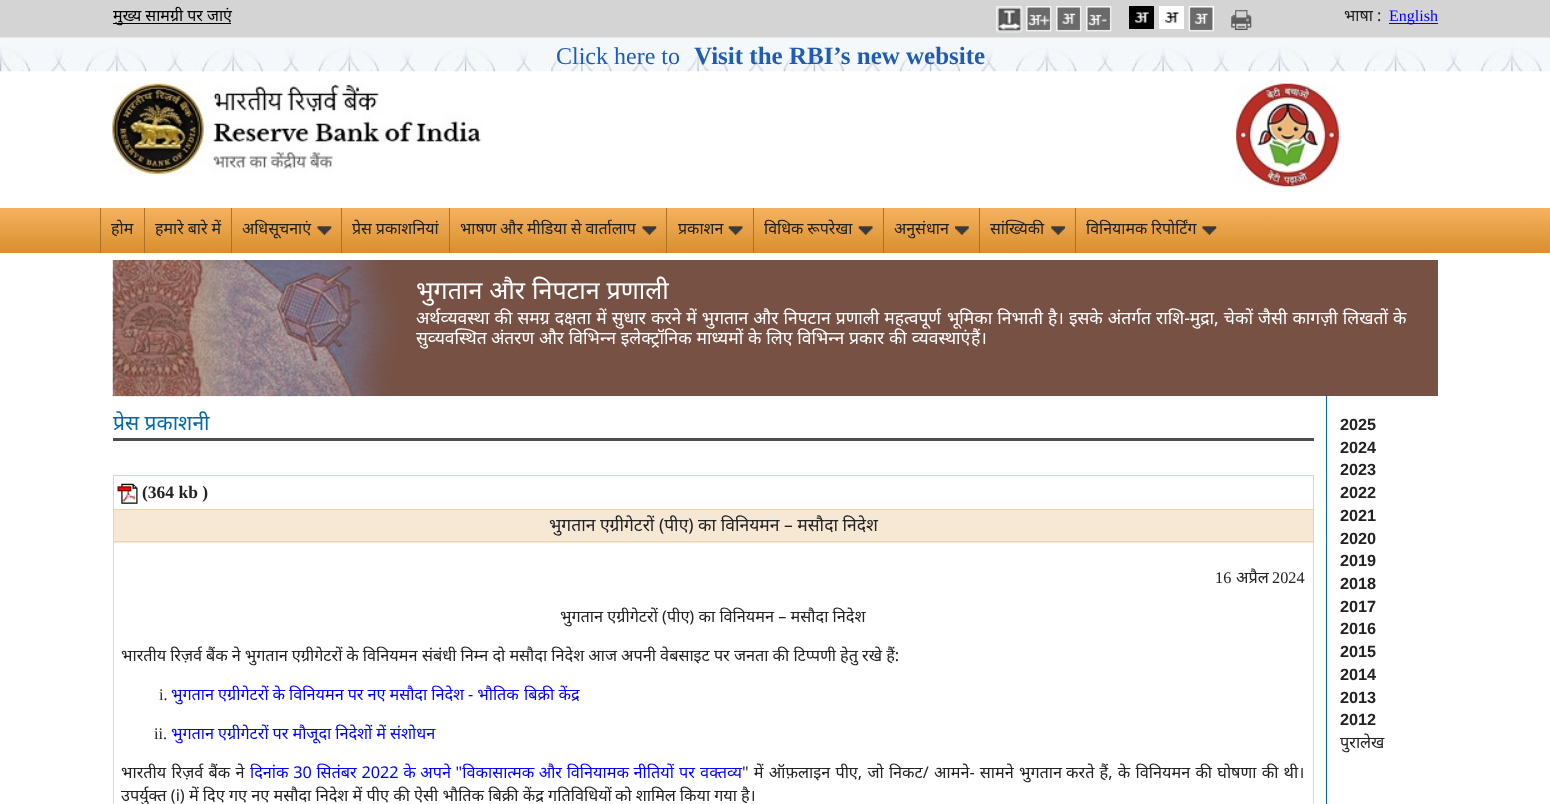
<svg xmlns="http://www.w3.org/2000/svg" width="1550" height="804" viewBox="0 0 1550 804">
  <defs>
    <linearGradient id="g1" gradientUnits="userSpaceOnUse" x1="775" y1="207" x2="775" y2="253"><stop offset="0" stop-color="#f6b361"/><stop offset="1" stop-color="#d88e2d"/></linearGradient>
  </defs>
  <rect width="100%" height="100%" fill="#ffffff"/>
  <rect x="0" y="0" width="1550" height="38" fill="#d4d4d4"/>
  <rect x="113" y="23" width="118" height="1" fill="#000000"/>
  <text x="113" y="21" font-family="Noto Sans" font-size="16" fill="#000000">मुख्य सामग्री पर जाएं</text>
  <image x="996" y="6" width="27" height="27" href="img1.png"/>
  <image x="1026" y="6" width="26" height="26" href="img2.png"/>
  <image x="1056" y="6" width="26" height="26" href="img3.png"/>
  <image x="1086" y="6" width="26" height="26" href="img4.png"/>
  <rect x="1129" y="6" width="25" height="23" fill="#000000"/>
  <image x="1134" y="12" width="15" height="11" href="img5.png"/>
  <rect x="1159" y="6" width="25" height="23" fill="#ffffff"/>
  <image x="1164" y="12" width="15" height="11" href="img6.png"/>
  <rect x="1189" y="6" width="25" height="23" fill="#ffffff"/>
  <image x="1188" y="6" width="26" height="26" href="img7.png"/>
  <image x="1231" y="10" width="21" height="20" href="img8.png"/>
  <text x="1344" y="21" font-family="Noto Sans" font-size="16" fill="#222222">भाषा :</text>
  <rect x="1389" y="23" width="49" height="1" fill="#0000ff"/>
  <text x="1389" y="21" font-family="Liberation Serif" font-size="16" fill="#0000ff">English</text>
  <image x="0" y="37" width="1550" height="35" href="img9.png"/>
  <text x="556" y="64" font-family="Liberation Serif" font-size="24" fill="#205db1">Click here to</text>
  <text x="694" y="64" font-family="Liberation Serif" font-size="25" font-weight="bold" fill="#205db1">Visit the RBI’s new website</text>
  <image x="112" y="83" width="370" height="91" href="img10.png"/>
  <image x="1236" y="83" width="103" height="104" href="img11.png"/>
  <rect x="0" y="208" width="1550" height="45" fill="url(#g1)"/>
  <rect x="100" y="208" width="1" height="45" fill="#ae7226"/>
  <text x="111" y="234" font-family="Noto Sans" font-size="16" fill="#222222">होम</text>
  <rect x="144" y="208" width="1" height="45" fill="#ae7226"/>
  <text x="155" y="234" word-spacing="-0.25" font-family="Noto Sans" font-size="16" fill="#222222">हमारे बारे में</text>
  <rect x="231" y="208" width="1" height="45" fill="#ae7226"/>
  <text x="242" y="234" font-family="Noto Sans" font-size="16" fill="#222222">अधिसूचनाएं</text>
  <image x="317" y="226" width="15" height="9" href="img12.png"/>
  <rect x="341" y="208" width="1" height="45" fill="#ae7226"/>
  <text x="352" y="234" word-spacing="-0.25" font-family="Noto Sans" font-size="16" fill="#222222">प्रेस प्रकाशनियां</text>
  <rect x="449" y="208" width="1" height="45" fill="#ae7226"/>
  <text x="460" y="234" word-spacing="-0.25" font-family="Noto Sans" font-size="16" fill="#222222">भाषण और मीडिया से वार्तालाप</text>
  <image x="642" y="226" width="15" height="9" href="img12.png"/>
  <rect x="666" y="208" width="1" height="45" fill="#ae7226"/>
  <text x="678" y="234" font-family="Noto Sans" font-size="16" fill="#222222">प्रकाशन</text>
  <image x="728" y="226" width="15" height="9" href="img13.png"/>
  <rect x="753" y="208" width="1" height="45" fill="#ae7226"/>
  <text x="764" y="234" word-spacing="-0.25" font-family="Noto Sans" font-size="16" fill="#222222">विधिक रूपरेखा</text>
  <image x="858" y="226" width="15" height="9" href="img13.png"/>
  <rect x="883" y="208" width="1" height="45" fill="#ae7226"/>
  <text x="894" y="234" font-family="Noto Sans" font-size="16" fill="#222222">अनुसंधान</text>
  <image x="955" y="226" width="14" height="9" href="img14.png"/>
  <rect x="979" y="208" width="1" height="45" fill="#ae7226"/>
  <text x="990" y="234" font-family="Noto Sans" font-size="16" fill="#222222">सांख्यिकी</text>
  <image x="1051" y="226" width="14" height="9" href="img15.png"/>
  <rect x="1075" y="208" width="1" height="45" fill="#ae7226"/>
  <text x="1086" y="234" word-spacing="-0.25" font-family="Noto Sans" font-size="16" fill="#222222">विनियामक रिपोर्टिंग</text>
  <image x="1202" y="226" width="15" height="9" href="img12.png"/>
  <rect x="113" y="260" width="1325" height="136" fill="#775144"/>
  <image x="112" y="260" width="286" height="137" href="img16.png"/>
  <text x="416" y="299" word-spacing="0.5" font-family="Noto Sans" font-size="25" fill="#ffffff">भुगतान और निपटान प्रणाली</text>
  <text x="416" y="324" word-spacing="0.5" font-family="Noto Sans" font-size="17.5" fill="#ffffff">अर्थव्‍यवस्‍था की समग्र दक्षता में सुधार करने में भुगतान और निपटान प्रणाली महत्वपूर्ण</text>
  <text x="947" y="324" word-spacing="0.5" font-family="Noto Sans" font-size="17.5" fill="#ffffff">भूमिका निभाती है। इसके अंतर्गत राशि-मुद्रा, चेकों जैसी कागज़ी लिखतों के</text>
  <text x="416" y="344" font-family="Noto Sans" font-size="17.5" fill="#ffffff">सुव्‍यवस्थित</text>
  <text x="491" y="344" word-spacing="0.25" font-family="Noto Sans" font-size="17.5" fill="#ffffff">अंतरण और विभिन्‍न इलेक्‍ट्रॉनिक माध्‍यमों के लिए विभिन्‍न प्रकार की व्‍यवस्‍थाएं</text>
  <text x="971" y="344" font-family="Noto Sans" font-size="17.5" fill="#ffffff">हैं।</text>
  <rect x="1326" y="396" width="1" height="408" fill="#0469a3"/>
  <rect x="113" y="438" width="1201" height="3" fill="#4c4c4c"/>
  <text x="113" y="430" font-family="Noto Sans" font-size="21" fill="#0469a3">प्रेस प्रकाशनी</text>
  <rect x="113" y="475" width="1201" height="1" fill="#efd1aa"/>
  <rect x="113" y="509" width="1201" height="1" fill="#efd1aa"/>
  <rect x="114" y="510" width="1199" height="33" fill="#f7e8d5"/>
  <rect x="113" y="541" width="1201" height="1" fill="#efd1aa"/>
  <rect x="1313" y="541" width="1" height="263" fill="#efd1aa"/>
  <rect x="1313" y="509" width="1" height="34" fill="#efd1aa"/>
  <rect x="1313" y="475" width="1" height="35" fill="#efd1aa"/>
  <rect x="113" y="541" width="1" height="263" fill="#efd1aa"/>
  <rect x="113" y="509" width="1" height="34" fill="#efd1aa"/>
  <rect x="113" y="475" width="1" height="35" fill="#efd1aa"/>
  <image x="117" y="483" width="21" height="21" href="img17.png"/>
  <text x="142" y="498" font-family="Liberation Serif" font-size="17.5" font-weight="bold" fill="#222222">(364 kb )</text>
  <text x="549" y="531" font-family="Noto Sans" font-size="17.5" fill="#222222">भुगतान एग्रीगेटरों (पीए) का विनियमन – मसौदा निदेश</text>
  <text x="1215" y="583" font-family="Liberation Serif" font-size="16.25" fill="#222222">16</text>
  <text x="1236" y="583" font-family="Noto Sans" font-size="16.25" fill="#222222">अप्रैल</text>
  <text x="1272" y="583" font-family="Liberation Serif" font-size="16.25" fill="#222222">2024</text>
  <text x="560" y="622" font-family="Noto Sans" font-size="16.25" fill="#222222">भुगतान एग्रीगेटरों (पीए) का विनियमन – मसौदा निदेश</text>
  <text x="121" y="661" word-spacing="-0.25" font-family="Noto Sans" font-size="16.25" fill="#222222">भारतीय रिज़र्व बैंक ने भुगतान एग्रीगेटरों के विनियमन</text>
  <text x="422" y="661" word-spacing="-0.1" font-family="Noto Sans" font-size="16.25" fill="#222222">संबंधी निम्न दो मसौदा निदेश आज अपनी वेबसाइट पर जनता की टिप्पणी हेतु रखे हैं:</text>
  <text x="159" y="700" font-family="Liberation Serif" font-size="16.25" fill="#222222">i.</text>
  <text x="171" y="700" word-spacing="-0.25" font-family="Noto Sans" font-size="16.25" fill="#0000ff">भुगतान एग्रीगेटरों के विनियमन पर नए मसौदा निदेश - भौतिक</text>
  <text x="524" y="700" font-family="Noto Sans" font-size="16.25" fill="#0000ff">बिक्री केंद्र</text>
  <text x="154" y="739" font-family="Liberation Serif" font-size="16.25" fill="#222222">ii.</text>
  <text x="171" y="739" word-spacing="-0.25" font-family="Noto Sans" font-size="16.25" fill="#0000ff">भुगतान एग्रीगेटरों पर मौजूदा निदेशों में संशोधन</text>
  <text x="121" y="778" word-spacing="1" font-family="Noto Sans" font-size="16.25" fill="#222222">भारतीय रिज़र्व बैंक ने</text>
  <text x="250" y="778" word-spacing="0.4" font-family="Noto Sans" font-size="16.25" fill="#0000ff">दिनांक 30 सितंबर 2022 के अपने "विकासात्मक और विनियामक नीतियों</text>
  <text x="679" y="778" word-spacing="1" font-family="Noto Sans" font-size="16.25" fill="#0000ff">पर वक्तव्य</text>
  <text x="742" y="778" word-spacing="1" font-family="Noto Sans" font-size="16.25" fill="#222222">" में ऑफ़लाइन पीए, जो निकट/ आमने- सामने भुगतान</text>
  <text x="1066" y="778" word-spacing="1" font-family="Noto Sans" font-size="16.25" fill="#222222">करते हैं, के विनियमन की घोषणा की थी।</text>
  <text x="121" y="801" font-family="Noto Sans" font-size="16.25" fill="#222222">उपर्युक्त (i) में दिए गए नए मसौदा निदेश में पीए की ऐसी भौतिक बिक्री केंद्र गतिविधियों</text>
  <text x="615" y="801" word-spacing="-0.25" font-family="Noto Sans" font-size="16.25" fill="#222222">को शामिल किया गया है।</text>
  <text x="1340" y="430" font-family="Liberation Sans" font-size="16.25" font-weight="bold" fill="#222222">2025</text>
  <text x="1340" y="453" font-family="Liberation Sans" font-size="16.25" font-weight="bold" fill="#222222">2024</text>
  <text x="1340" y="475" font-family="Liberation Sans" font-size="16.25" font-weight="bold" fill="#222222">2023</text>
  <text x="1340" y="498" font-family="Liberation Sans" font-size="16.25" font-weight="bold" fill="#222222">2022</text>
  <text x="1340" y="521" font-family="Liberation Sans" font-size="16.25" font-weight="bold" fill="#222222">2021</text>
  <text x="1340" y="544" font-family="Liberation Sans" font-size="16.25" font-weight="bold" fill="#222222">2020</text>
  <text x="1340" y="566" font-family="Liberation Sans" font-size="16.25" font-weight="bold" fill="#222222">2019</text>
  <text x="1340" y="589" font-family="Liberation Sans" font-size="16.25" font-weight="bold" fill="#222222">2018</text>
  <text x="1340" y="612" font-family="Liberation Sans" font-size="16.25" font-weight="bold" fill="#222222">2017</text>
  <text x="1340" y="634" font-family="Liberation Sans" font-size="16.25" font-weight="bold" fill="#222222">2016</text>
  <text x="1340" y="657" font-family="Liberation Sans" font-size="16.25" font-weight="bold" fill="#222222">2015</text>
  <text x="1340" y="680" font-family="Liberation Sans" font-size="16.25" font-weight="bold" fill="#222222">2014</text>
  <text x="1340" y="703" font-family="Liberation Sans" font-size="16.25" font-weight="bold" fill="#222222">2013</text>
  <text x="1340" y="725" font-family="Liberation Sans" font-size="16.25" font-weight="bold" fill="#222222">2012</text>
  <text x="1340" y="748" font-family="Noto Sans" font-size="16.25" fill="#222222">पुरालेख</text>
</svg>
